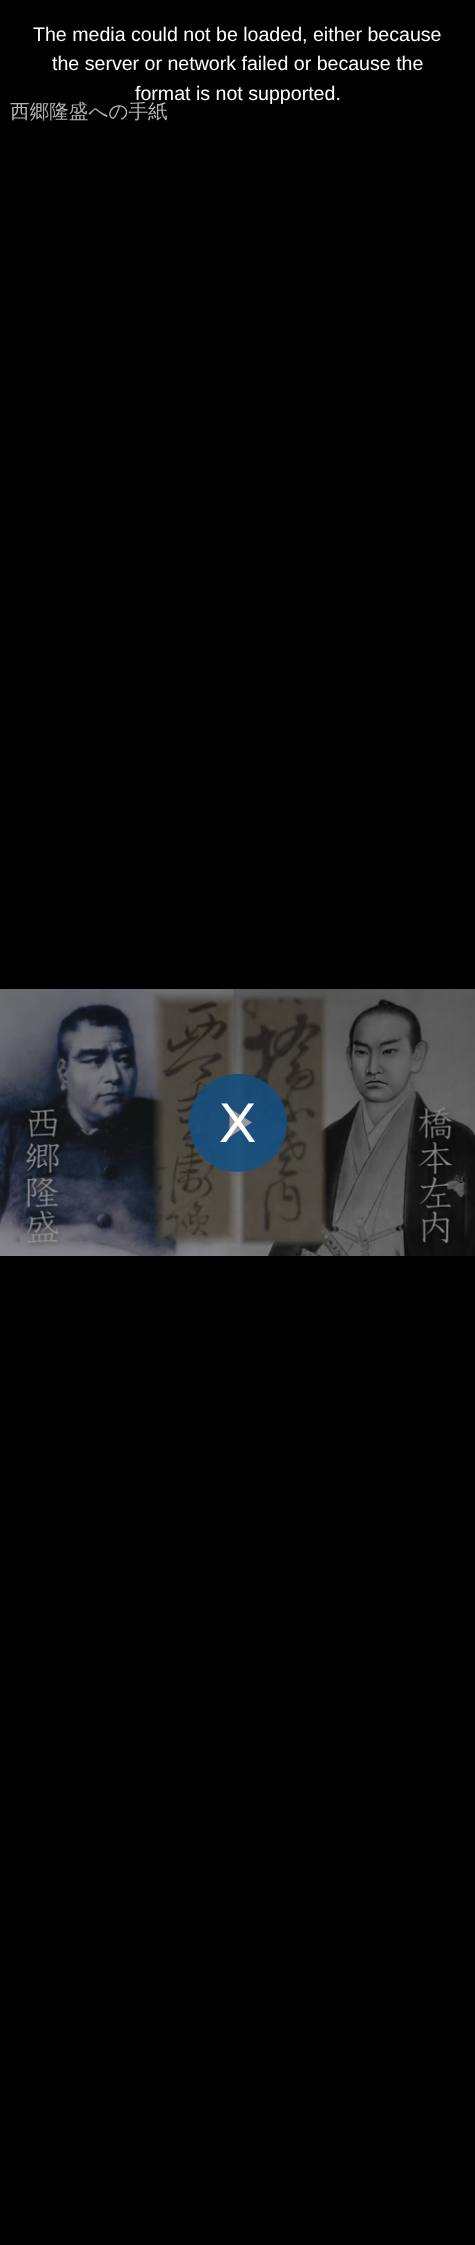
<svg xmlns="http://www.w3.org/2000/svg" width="475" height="2245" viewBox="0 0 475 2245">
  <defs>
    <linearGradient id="g1" gradientUnits="userSpaceOnUse" x1="237" y1="0" x2="238" y2="2245"><stop offset="0" stop-color="#000000" stop-opacity="0.8"/><stop offset="1" stop-color="#000000" stop-opacity="0"/></linearGradient>
  </defs>
  <rect width="100%" height="100%" fill="#000000"/>
  <image x="0" y="989" width="475" height="267" href="img1.png"/>
  <circle cx="238" cy="1123" r="49" fill="#2483d5" fill-opacity="0.9"/>
  <path d="M229.5 1108V1137L252 1122.5Z" fill="#ffffff"/>
  <rect x="0" y="989" width="475" height="267" fill="url(#g1)"/>
  <text x="33" y="41" font-family="Liberation Sans" font-size="19.6" fill="#ffffff">The media could not be loaded, either because</text>
  <text x="52" y="70" font-family="Liberation Sans" font-size="19.6" fill="#ffffff">the server or network failed or because the</text>
  <text x="135" y="100" font-family="Liberation Sans" font-size="19.6" fill="#ffffff">format is not supported.</text>
  <text x="219" y="1142" font-family="Liberation Sans" font-size="56" fill="#ffffff">X</text>
  <text x="10" y="118" font-family="WenQuanYi Zen Hei" font-size="19.6" font-weight="500" fill="#b3b3b3">西郷隆盛への手紙</text>
</svg>
